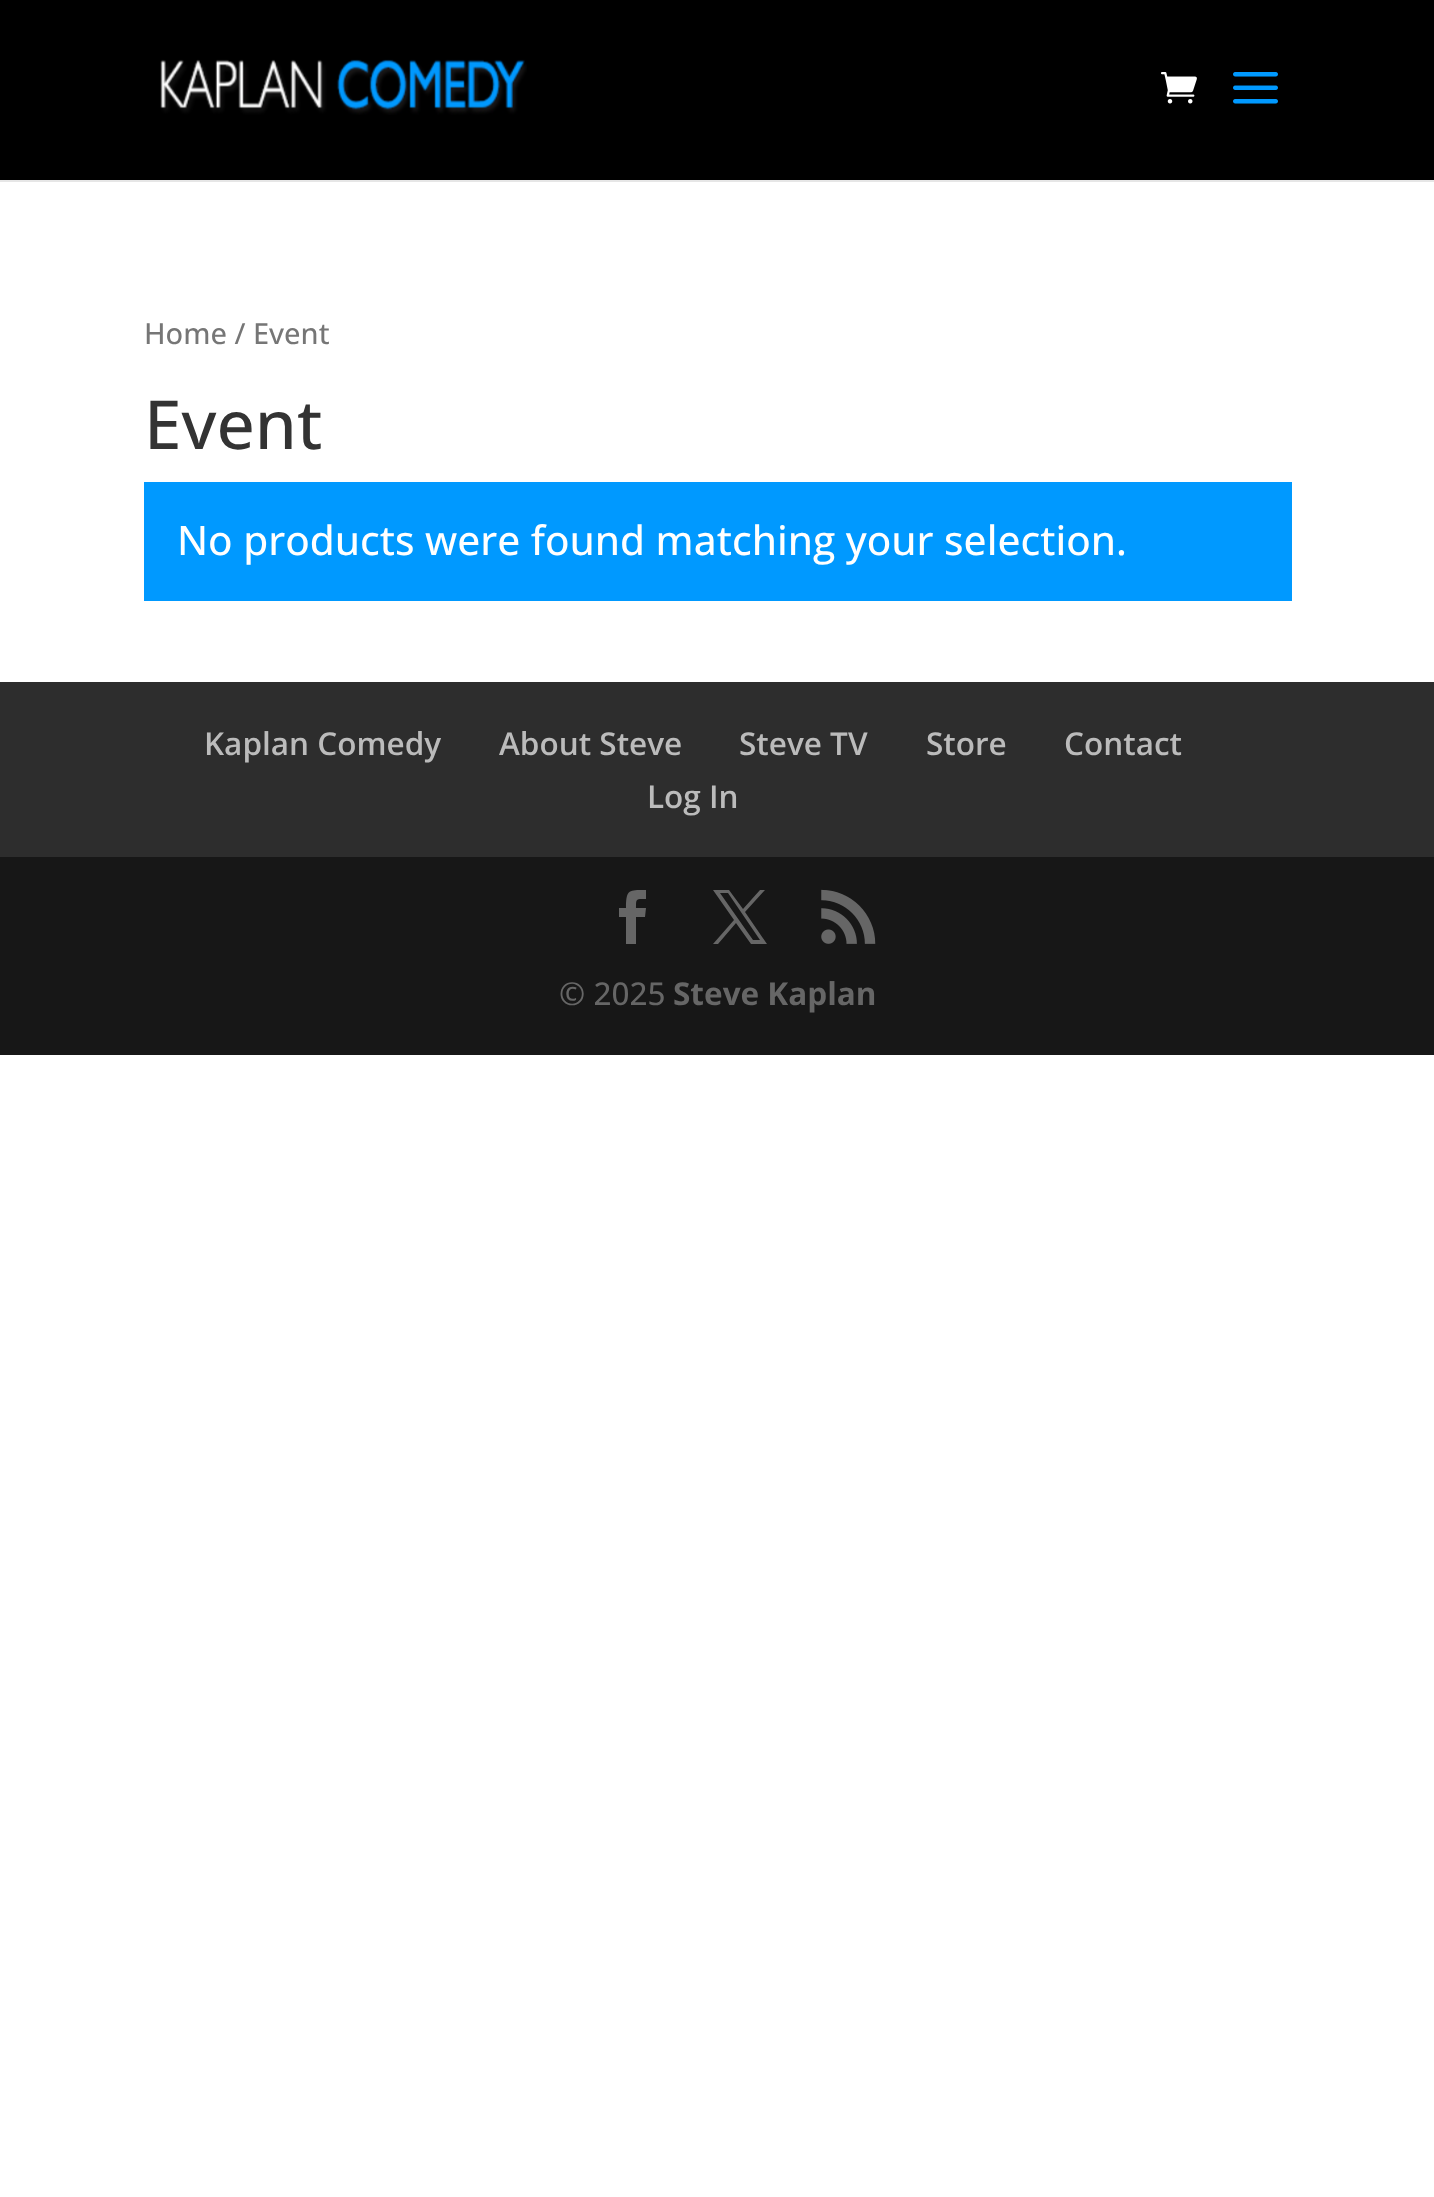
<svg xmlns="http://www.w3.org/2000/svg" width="1434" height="2197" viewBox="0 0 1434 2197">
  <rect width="100%" height="100%" fill="#ffffff"/>
  <path d="M0 180V182H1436V2V180Z" fill="#e6e6e6"/>
  <rect x="0" y="0" width="1434" height="180" fill="#000000"/>
  <image x="160" y="59" width="367" height="56" href="img1.png"/>
  <image x="1161" y="72" width="36" height="32" href="img2.png"/>
  <image x="1233" y="72" width="45" height="32" href="img3.png"/>
  <text x="144" y="344" font-family="Open Sans" font-size="29" font-weight="500" fill="#767676">Home / Event</text>
  <text x="144" y="449" font-family="Open Sans" font-size="67.5" font-weight="500" fill="#333333">Event</text>
  <rect x="144" y="482" width="1148" height="119" fill="#0099ff"/>
  <text x="177" y="555" font-family="Open Sans" font-size="40.5" font-weight="500" fill="#ffffff">No products were found matching your selection.</text>
  <rect x="0" y="682" width="1434" height="175" fill="#2d2d2d"/>
  <text x="204" y="755" font-family="Open Sans" font-size="31.5" font-weight="600" fill="#bbbbbb">Kaplan Comedy</text>
  <text x="499" y="755" font-family="Open Sans" font-size="31.5" font-weight="600" fill="#bbbbbb">About Steve</text>
  <text x="739" y="755" font-family="Open Sans" font-size="31.5" font-weight="600" fill="#bbbbbb">Steve TV</text>
  <text x="926" y="755" font-family="Open Sans" font-size="31.5" font-weight="600" fill="#bbbbbb">Store</text>
  <text x="1064" y="755" font-family="Open Sans" font-size="31.5" font-weight="600" fill="#bbbbbb">Contact</text>
  <text x="647" y="808" font-family="Open Sans" font-size="31.5" font-weight="600" fill="#bbbbbb">Log In</text>
  <rect x="0" y="857" width="1434" height="198" fill="#171717"/>
  <path d="M626 944H636V917H645L646 908H636C636 898 636 899 646 899V890C629 890 626 889 626 908H619V917H626Z" fill="#666666"/>
  <path d="M713 890L734 920L713 944H718L736 923L751 944H767L745 912L765 890H760L743 909L729 890ZM720 893H728L760 940H753Z" fill="#666666"/>
  <image x="821" y="889" width="55" height="55" href="img4.png"/>
  <text x="559" y="1005" font-family="Open Sans" font-size="31.5" font-weight="500" fill="#666666">© 2025</text>
  <text x="673" y="1005" font-family="Open Sans" font-size="31.5" font-weight="bold" fill="#666666">Steve Kaplan</text>
</svg>
